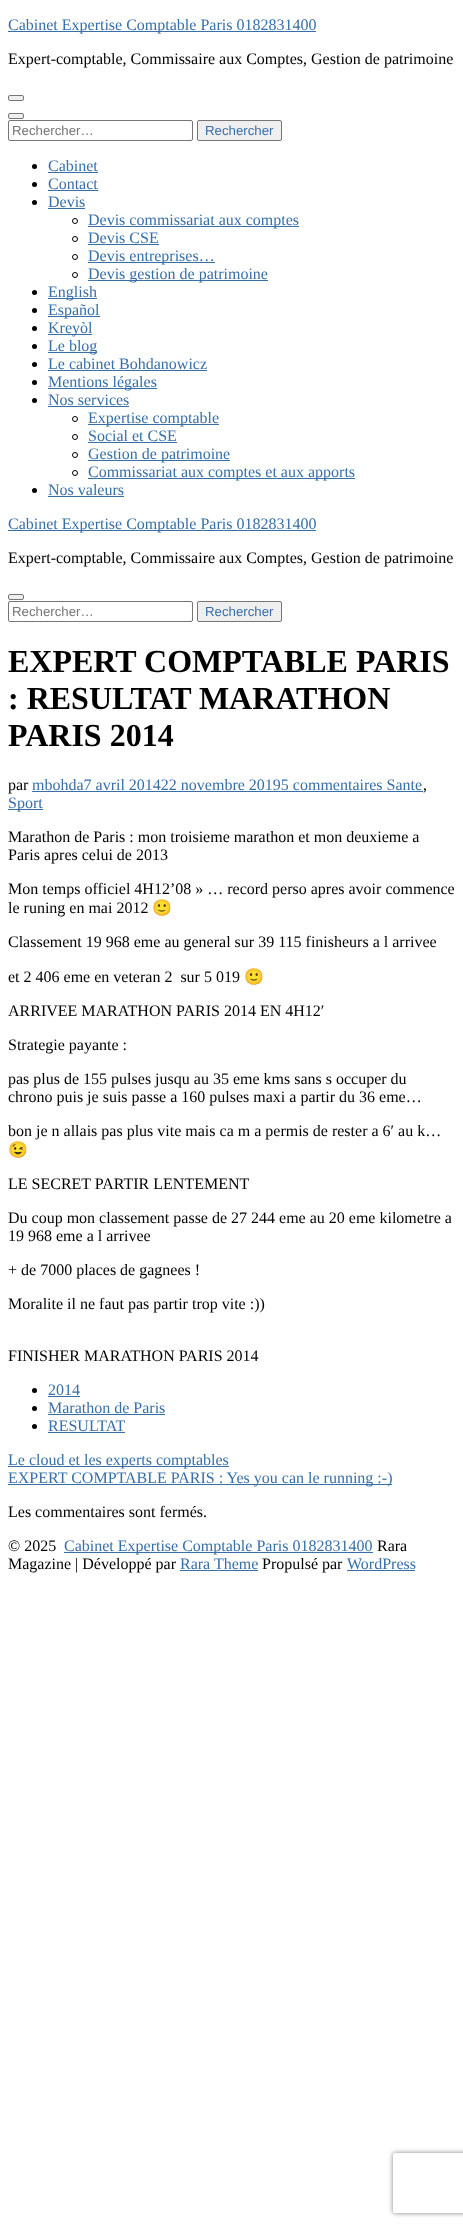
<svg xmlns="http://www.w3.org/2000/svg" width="463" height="2227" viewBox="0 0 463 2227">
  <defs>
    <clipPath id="clip1"><path d="M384 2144H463V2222H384ZM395 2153H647C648 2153 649 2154 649 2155V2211C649 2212 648 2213 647 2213H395C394 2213 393 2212 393 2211V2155C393 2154 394 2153 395 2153Z" clip-rule="evenodd"/></clipPath>
    <filter id="blur1" x="-50%" y="-200%" width="200%" height="500%"><feGaussianBlur stdDeviation="2.5"/></filter>
  </defs>
  <rect width="100%" height="100%" fill="#ffffff"/>
  <rect x="8" y="31" width="308" height="1" fill="#386fa7"/>
  <text x="8" y="30" font-family="Liberation Serif" font-size="16" fill="#386fa7">Cabinet Expertise Comptable Paris 0182831400</text>
  <text x="8" y="64" font-family="Liberation Serif" font-size="16" fill="#000000">Expert-comptable, Commissaire aux Comptes, Gestion de patrimoine</text>
  <rect x="8.5" y="95.5" width="15" height="5" rx="1.5" fill="#efefef" stroke="#767676"/>
  <rect x="8.5" y="113.5" width="15" height="5" rx="1.5" fill="#efefef" stroke="#767676"/>
  <rect x="8.5" y="120.5" width="184" height="20" rx="1.5" fill="none" stroke="#767676"/>
  <text x="12" y="135" font-family="Liberation Sans" font-size="13.25" fill="#757575">Rechercher…</text>
  <rect x="197.5" y="120.5" width="84" height="20" rx="1.5" fill="#efefef" stroke="#767676"/>
  <text x="205" y="135" font-family="Liberation Sans" font-size="13.25" fill="#386fa7">Rechercher</text>
  <circle cx="34.5" cy="166.5" r="2.5" fill="#000000"/>
  <text x="48" y="171" font-family="Liberation Serif" font-size="16" fill="#386fa7">Cabinet</text>
  <rect x="48" y="172" width="50" height="1" fill="#386fa7"/>
  <circle cx="34.5" cy="184.5" r="2.5" fill="#000000"/>
  <text x="48" y="189" font-family="Liberation Serif" font-size="16" fill="#386fa7">Contact</text>
  <rect x="48" y="190" width="50" height="1" fill="#386fa7"/>
  <circle cx="34.5" cy="202.5" r="2.5" fill="#000000"/>
  <text x="48" y="207" font-family="Liberation Serif" font-size="16" fill="#386fa7">Devis</text>
  <rect x="48" y="208" width="37" height="1" fill="#386fa7"/>
  <circle cx="75" cy="221" r="2.5" fill="none" stroke="#000000"/>
  <rect x="88" y="226" width="211" height="1" fill="#386fa7"/>
  <text x="88" y="225" font-family="Liberation Serif" font-size="16" fill="#386fa7">Devis commissariat aux comptes</text>
  <circle cx="75" cy="239" r="2.5" fill="none" stroke="#000000"/>
  <text x="88" y="243" font-family="Liberation Serif" font-size="16" fill="#386fa7">Devis CSE</text>
  <rect x="88" y="244" width="71" height="1" fill="#386fa7"/>
  <circle cx="75" cy="257" r="2.5" fill="none" stroke="#000000"/>
  <rect x="88" y="262" width="127" height="1" fill="#386fa7"/>
  <text x="88" y="261" font-family="Liberation Serif" font-size="16" fill="#386fa7">Devis entreprises…</text>
  <circle cx="75" cy="275" r="2.5" fill="none" stroke="#000000"/>
  <rect x="88" y="280" width="180" height="1" fill="#386fa7"/>
  <text x="88" y="279" font-family="Liberation Serif" font-size="16" fill="#386fa7">Devis gestion de patrimoine</text>
  <circle cx="34.5" cy="292.5" r="2.5" fill="#000000"/>
  <rect x="48" y="298" width="49" height="1" fill="#386fa7"/>
  <text x="48" y="297" font-family="Liberation Serif" font-size="16" fill="#386fa7">English</text>
  <circle cx="34.5" cy="310.5" r="2.5" fill="#000000"/>
  <rect x="48" y="316" width="52" height="1" fill="#386fa7"/>
  <text x="48" y="315" font-family="Liberation Serif" font-size="16" fill="#386fa7">Español</text>
  <circle cx="34.5" cy="328.5" r="2.5" fill="#000000"/>
  <rect x="48" y="334" width="44" height="1" fill="#386fa7"/>
  <text x="48" y="333" font-family="Liberation Serif" font-size="16" fill="#386fa7">Kreyòl</text>
  <circle cx="34.5" cy="346.5" r="2.5" fill="#000000"/>
  <rect x="48" y="352" width="49" height="1" fill="#386fa7"/>
  <text x="48" y="351" font-family="Liberation Serif" font-size="16" fill="#386fa7">Le blog</text>
  <circle cx="34.5" cy="364.5" r="2.5" fill="#000000"/>
  <text x="48" y="369" font-family="Liberation Serif" font-size="16" fill="#386fa7">Le cabinet Bohdanowicz</text>
  <rect x="48" y="370" width="159" height="1" fill="#386fa7"/>
  <circle cx="34.5" cy="382.5" r="2.5" fill="#000000"/>
  <rect x="48" y="388" width="109" height="1" fill="#386fa7"/>
  <text x="48" y="387" font-family="Liberation Serif" font-size="16" fill="#386fa7">Mentions légales</text>
  <circle cx="34.5" cy="400.5" r="2.5" fill="#000000"/>
  <text x="48" y="405" font-family="Liberation Serif" font-size="16" fill="#386fa7">Nos services</text>
  <rect x="48" y="406" width="81" height="1" fill="#386fa7"/>
  <circle cx="75" cy="419" r="2.5" fill="none" stroke="#000000"/>
  <rect x="88" y="424" width="131" height="1" fill="#386fa7"/>
  <text x="88" y="423" font-family="Liberation Serif" font-size="16" fill="#386fa7">Expertise comptable</text>
  <circle cx="75" cy="437" r="2.5" fill="none" stroke="#000000"/>
  <text x="88" y="441" font-family="Liberation Serif" font-size="16" fill="#386fa7">Social et CSE</text>
  <rect x="88" y="442" width="89" height="1" fill="#386fa7"/>
  <circle cx="75" cy="455" r="2.5" fill="none" stroke="#000000"/>
  <rect x="88" y="460" width="142" height="1" fill="#386fa7"/>
  <text x="88" y="459" font-family="Liberation Serif" font-size="16" fill="#386fa7">Gestion de patrimoine</text>
  <circle cx="75" cy="473" r="2.5" fill="none" stroke="#000000"/>
  <rect x="88" y="478" width="267" height="1" fill="#386fa7"/>
  <text x="88" y="477" font-family="Liberation Serif" font-size="16" fill="#386fa7">Commissariat aux comptes et aux apports</text>
  <circle cx="34.5" cy="490.5" r="2.5" fill="#000000"/>
  <text x="48" y="495" font-family="Liberation Serif" font-size="16" fill="#386fa7">Nos valeurs</text>
  <rect x="48" y="496" width="76" height="1" fill="#386fa7"/>
  <rect x="8" y="530" width="308" height="1" fill="#386fa7"/>
  <text x="8" y="529" font-family="Liberation Serif" font-size="16" fill="#386fa7">Cabinet Expertise Comptable Paris 0182831400</text>
  <text x="8" y="563" font-family="Liberation Serif" font-size="16" fill="#000000">Expert-comptable, Commissaire aux Comptes, Gestion de patrimoine</text>
  <rect x="8.5" y="594.5" width="15" height="5" rx="1.5" fill="#efefef" stroke="#767676"/>
  <rect x="8.5" y="601.5" width="184" height="20" rx="1.5" fill="none" stroke="#767676"/>
  <text x="12" y="616" font-family="Liberation Sans" font-size="13.25" fill="#757575">Rechercher…</text>
  <rect x="197.5" y="601.5" width="84" height="20" rx="1.5" fill="#efefef" stroke="#767676"/>
  <text x="205" y="616" font-family="Liberation Sans" font-size="13.25" fill="#386fa7">Rechercher</text>
  <text x="8" y="672" font-family="Liberation Serif" font-size="32" font-weight="bold" fill="#000000">EXPERT COMPTABLE PARIS</text>
  <text x="8" y="709" font-family="Liberation Serif" font-size="32" font-weight="bold" fill="#000000">: RESULTAT MARATHON</text>
  <text x="8" y="746" font-family="Liberation Serif" font-size="32" font-weight="bold" fill="#000000">PARIS 2014</text>
  <text x="8" y="790" font-family="Liberation Serif" font-size="16" fill="#000000">par</text>
  <rect x="32" y="791" width="391" height="1" fill="#386fa7"/>
  <text x="32" y="790" font-family="Liberation Serif" font-size="16" fill="#386fa7">mbohda7 avril 201422 novembre 20195 commentaires Sante</text>
  <text x="423" y="790" font-family="Liberation Serif" font-size="16" fill="#000000">,</text>
  <rect x="8" y="809" width="35" height="1" fill="#386fa7"/>
  <text x="8" y="808" font-family="Liberation Serif" font-size="16" fill="#386fa7">Sport</text>
  <text x="8" y="842" font-family="Liberation Serif" font-size="16" fill="#000000">Marathon de Paris : mon troisieme marathon et mon deuxieme a</text>
  <text x="8" y="860" font-family="Liberation Serif" font-size="16" fill="#000000">Paris apres celui de 2013</text>
  <text x="8" y="894" font-family="Liberation Serif" font-size="16" fill="#000000">Mon temps officiel 4H12’08 » … record perso apres avoir commence</text>
  <text x="8" y="913" font-family="Liberation Serif" font-size="16" fill="#000000">le runing en mai 2012</text>
  <text x="152" y="913" font-family="Noto Color Emoji" font-size="16" fill="#000000">🙂</text>
  <text x="8" y="947" font-family="Liberation Serif" font-size="16" fill="#000000">Classement 19 968 eme au general sur 39 115 finisheurs a l arrivee</text>
  <text x="8" y="982" font-family="Liberation Serif" font-size="16" fill="#000000" xml:space="preserve">et 2 406 eme en veteran 2  sur 5 019</text>
  <text x="244" y="982" font-family="Noto Color Emoji" font-size="16" fill="#000000">🙂</text>
  <text x="8" y="1016" font-family="Liberation Serif" font-size="16" fill="#000000">ARRIVEE MARATHON PARIS 2014 EN 4H12′</text>
  <text x="8" y="1050" font-family="Liberation Serif" font-size="16" fill="#000000">Strategie payante :</text>
  <text x="8" y="1084" font-family="Liberation Serif" font-size="16" fill="#000000">pas plus de 155 pulses jusqu au 35 eme kms sans s occuper du</text>
  <text x="8" y="1102" font-family="Liberation Serif" font-size="16" fill="#000000">chrono puis je suis passe a 160 pulses maxi a partir du 36 eme…</text>
  <text x="8" y="1136" font-family="Liberation Serif" font-size="16" fill="#000000">bon je n allais pas plus vite mais ca m a permis de rester a 6′ au k…</text>
  <text x="8" y="1155" font-family="Noto Color Emoji" font-size="16" fill="#000000">😉</text>
  <text x="8" y="1189" font-family="Liberation Serif" font-size="16" fill="#000000">LE SECRET PARTIR LENTEMENT</text>
  <text x="8" y="1223" font-family="Liberation Serif" font-size="16" fill="#000000">Du coup mon classement passe de 27 244 eme au 20 eme kilometre a</text>
  <text x="8" y="1241" font-family="Liberation Serif" font-size="16" fill="#000000">19 968 eme a l arrivee</text>
  <text x="8" y="1275" font-family="Liberation Serif" font-size="16" fill="#000000">+ de 7000 places de gagnees !</text>
  <text x="8" y="1309" font-family="Liberation Serif" font-size="16" fill="#000000">Moralite il ne faut pas partir trop vite :))</text>
  <text x="8" y="1361" font-family="Liberation Serif" font-size="16" fill="#000000">FINISHER MARATHON PARIS 2014</text>
  <circle cx="34.5" cy="1390.5" r="2.5" fill="#000000"/>
  <text x="48" y="1395" font-family="Liberation Serif" font-size="16" fill="#386fa7">2014</text>
  <rect x="48" y="1396" width="32" height="1" fill="#386fa7"/>
  <circle cx="34.5" cy="1408.5" r="2.5" fill="#000000"/>
  <text x="48" y="1413" font-family="Liberation Serif" font-size="16" fill="#386fa7">Marathon de Paris</text>
  <rect x="48" y="1414" width="117" height="1" fill="#386fa7"/>
  <circle cx="34.5" cy="1426.5" r="2.5" fill="#000000"/>
  <text x="48" y="1431" font-family="Liberation Serif" font-size="16" fill="#386fa7">RESULTAT</text>
  <rect x="48" y="1432" width="77" height="1" fill="#386fa7"/>
  <rect x="8" y="1466" width="221" height="1" fill="#386fa7"/>
  <text x="8" y="1465" font-family="Liberation Serif" font-size="16" fill="#386fa7">Le cloud et les experts comptables</text>
  <rect x="8" y="1484" width="384" height="1" fill="#386fa7"/>
  <text x="8" y="1483" font-family="Liberation Serif" font-size="16" fill="#386fa7">EXPERT COMPTABLE PARIS : Yes you can le running :-)</text>
  <text x="8" y="1517" font-family="Liberation Serif" font-size="16" fill="#000000">Les commentaires sont fermés.</text>
  <text x="8" y="1551" font-family="Liberation Serif" font-size="16" fill="#000000">© 2025</text>
  <rect x="64" y="1552" width="309" height="1" fill="#386fa7"/>
  <text x="64" y="1551" font-family="Liberation Serif" font-size="16" fill="#386fa7">Cabinet Expertise Comptable Paris 0182831400</text>
  <text x="377" y="1551" font-family="Liberation Serif" font-size="16" fill="#000000">Rara</text>
  <text x="8" y="1569" font-family="Liberation Serif" font-size="16" fill="#000000">Magazine | Développé par</text>
  <text x="180" y="1569" font-family="Liberation Serif" font-size="16" fill="#386fa7">Rara Theme</text>
  <rect x="180" y="1570" width="78" height="1" fill="#386fa7"/>
  <text x="262" y="1569" font-family="Liberation Serif" font-size="16" fill="#000000">Propulsé par</text>
  <text x="347" y="1569" font-family="Liberation Serif" font-size="16" fill="#386fa7">WordPress</text>
  <rect x="347" y="1570" width="68" height="1" fill="#386fa7"/>
  <g clip-path="url(#clip1)">
    <rect x="393" y="2153" width="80" height="60" rx="2" fill="#808080" filter="url(#blur1)"/>
  </g>
</svg>
